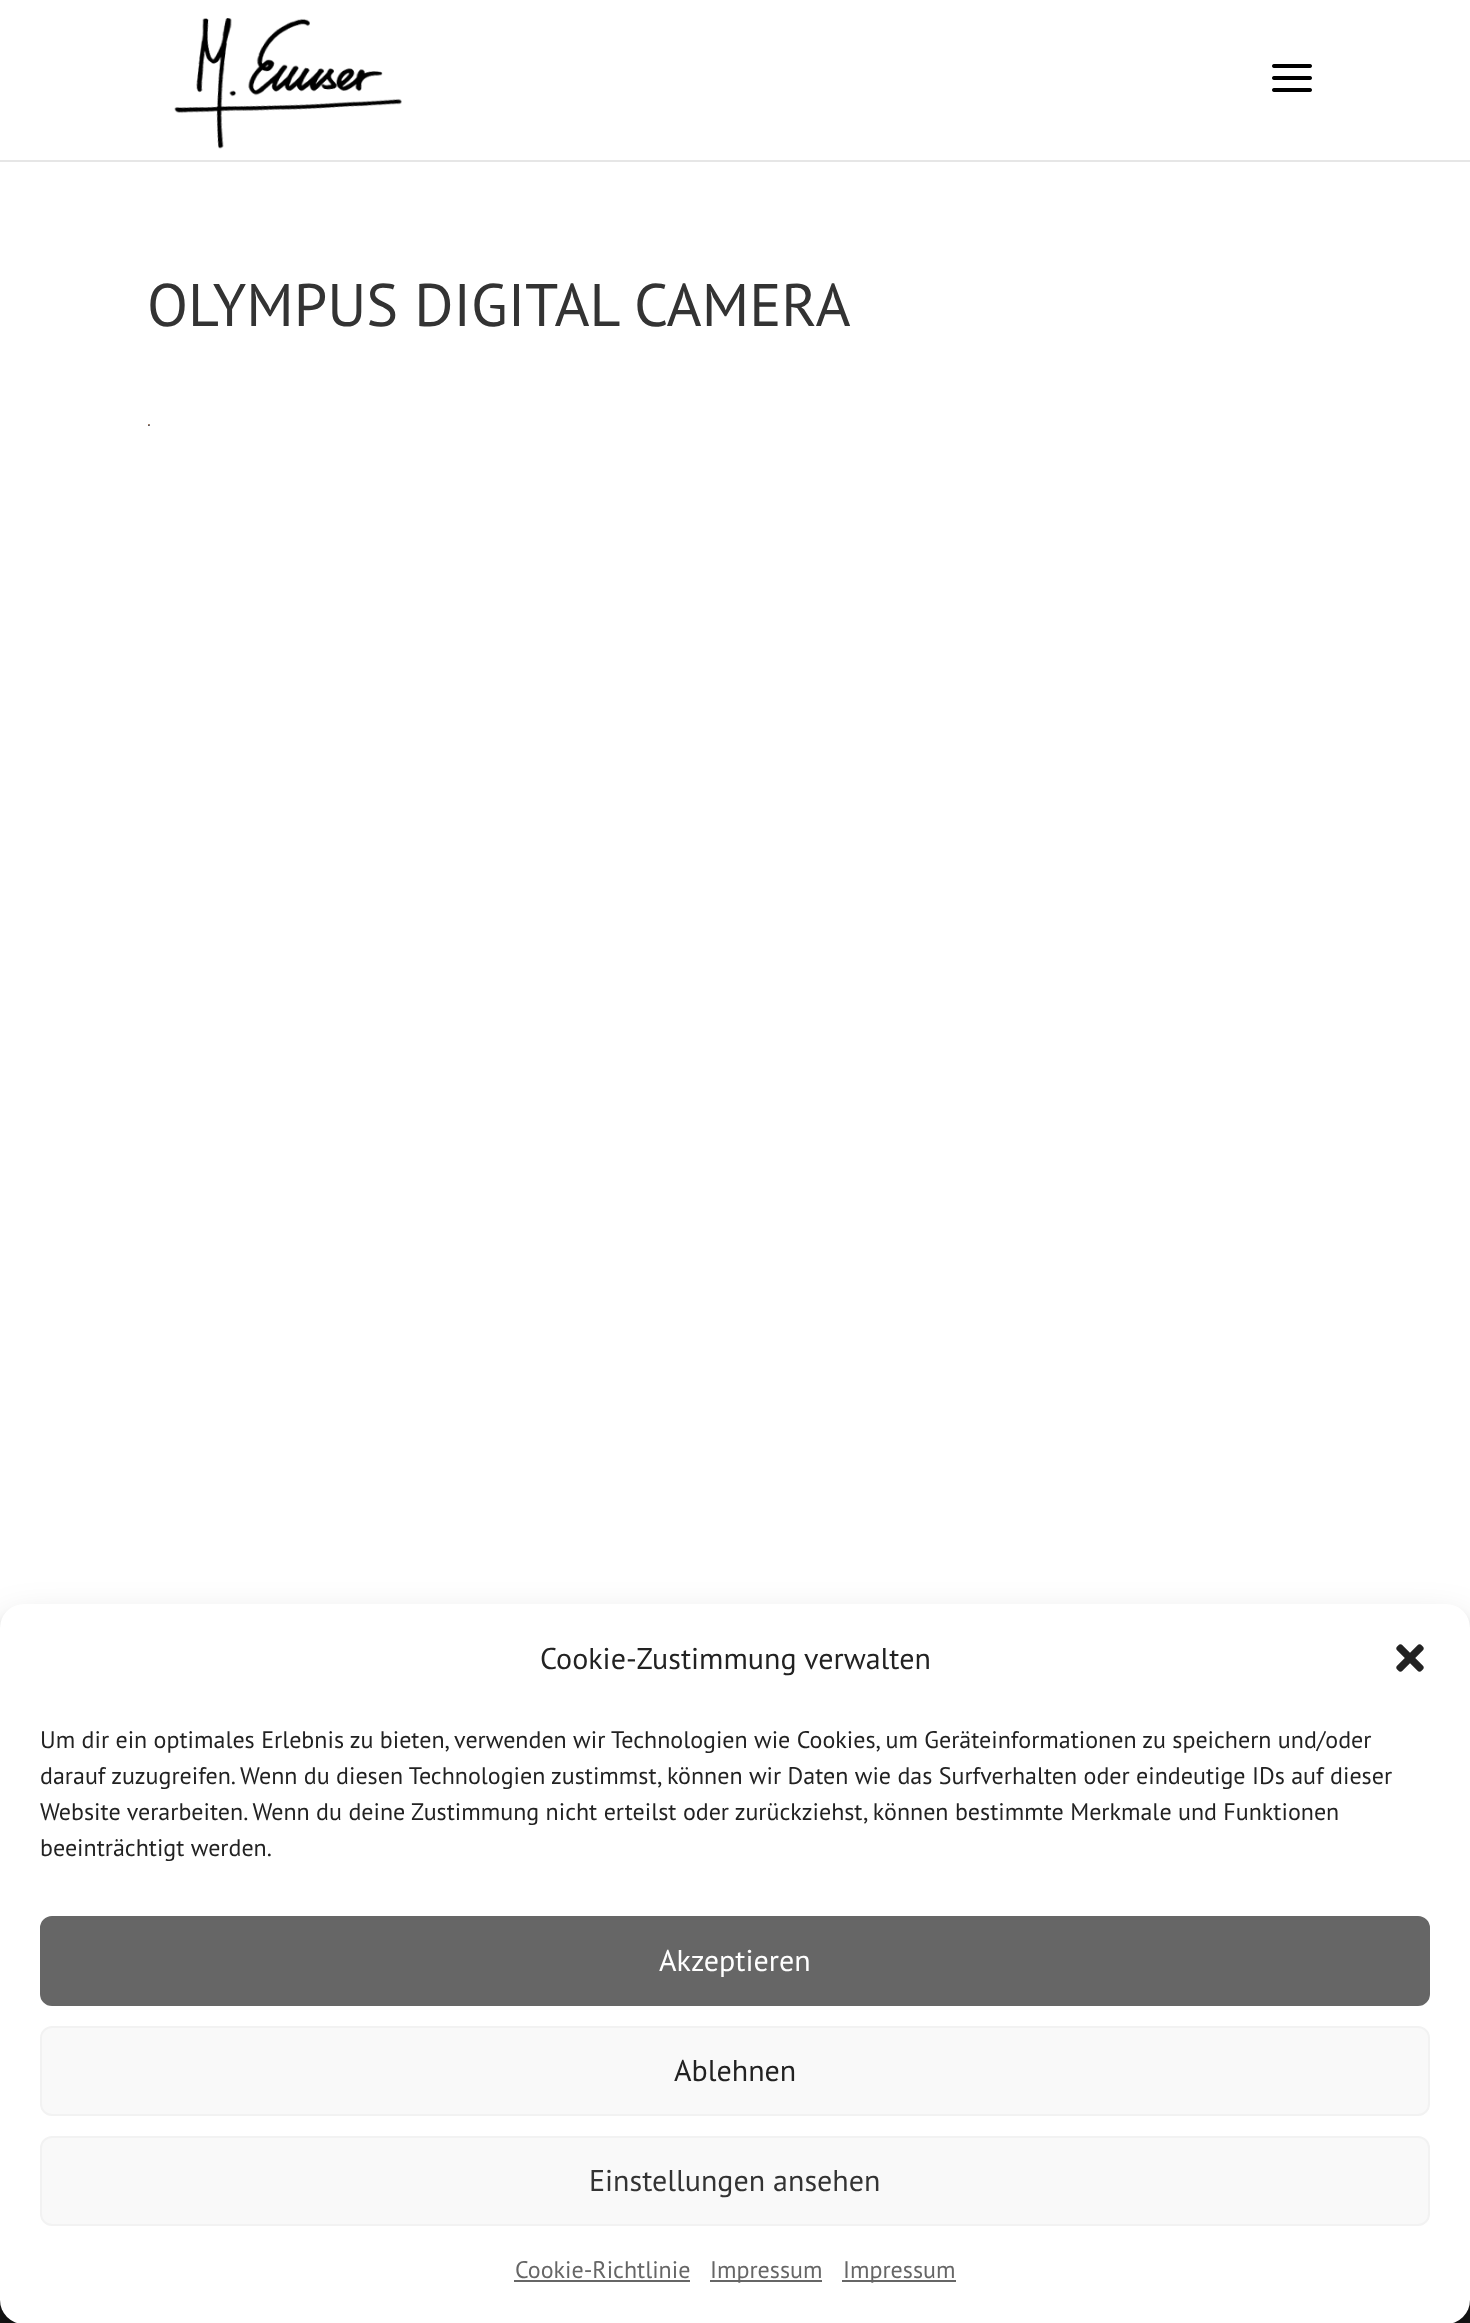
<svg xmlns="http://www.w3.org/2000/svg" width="1470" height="2323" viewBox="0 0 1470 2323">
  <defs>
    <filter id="blur1" x="-50%" y="-200%" width="200%" height="500%"><feGaussianBlur stdDeviation="6"/></filter>
    <filter id="blur2" x="-50%" y="-200%" width="200%" height="500%"><feGaussianBlur stdDeviation="20"/></filter>
  </defs>
  <rect width="100%" height="100%" fill="#ffffff"/>
  <rect x="0" y="160" width="1470" height="2" fill="#e6e6e6"/>
  <image x="174" y="18" width="228" height="131" href="img1.png"/>
  <image x="1272" y="64" width="40" height="28" href="img2.png"/>
  <text x="147" y="326" font-family="PT Sans" font-size="60" fill="#333333">OLYMPUS DIGITAL CAMERA</text>
  <image x="148" y="424" width="2" height="2" href="img3.png"/>
  <rect x="0" y="2300" width="1470" height="23" fill="#171717"/>
  <rect x="0" y="1616" width="1470" height="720" rx="24" fill="#000000" fill-opacity="0.23" filter="url(#blur1)"/>
  <rect x="0" y="1624" width="1470" height="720" rx="24" fill="#000000" fill-opacity="0.19" filter="url(#blur2)"/>
  <rect x="0" y="1604" width="1470" height="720" rx="24" fill="#ffffff"/>
  <text x="540" y="1669" font-family="PT Sans" font-size="30" fill="#222222">Cookie-Zustimmung verwalten</text>
  <image x="1396" y="1644" width="28" height="28" href="img4.png"/>
  <text x="40" y="1748" font-family="PT Sans" font-size="24" fill="#222222">Um dir ein optimales Erlebnis zu bieten, verwenden wir Technologien wie Cookies, um Geräteinformationen zu speichern und/oder</text>
  <text x="40" y="1784" font-family="PT Sans" font-size="24" fill="#222222">darauf zuzugreifen. Wenn du diesen Technologien zustimmst, können wir Daten wie das Surfverhalten oder eindeutige IDs auf dieser</text>
  <text x="40" y="1820" font-family="PT Sans" font-size="24" fill="#222222">Website verarbeiten. Wenn du deine Zustimmung nicht erteilst oder zurückziehst, können bestimmte Merkmale und Funktionen</text>
  <text x="40" y="1856" font-family="PT Sans" font-size="24" fill="#222222">beeinträchtigt werden.</text>
  <rect x="41" y="1917" width="1388" height="88" rx="11" fill="#666666" stroke="#666666" stroke-width="2"/>
  <text x="659" y="1971" font-family="PT Sans" font-size="30" fill="#ffffff">Akzeptieren</text>
  <rect x="41" y="2027" width="1388" height="88" rx="11" fill="#f9f9f9" stroke="#f2f2f2" stroke-width="2"/>
  <text x="674" y="2081" font-family="PT Sans" font-size="30" fill="#222222">Ablehnen</text>
  <rect x="41" y="2137" width="1388" height="88" rx="11" fill="#f9f9f9" stroke="#f2f2f2" stroke-width="2"/>
  <text x="589" y="2191" font-family="PT Sans" font-size="30" fill="#333333">Einstellungen ansehen</text>
  <text x="515" y="2278" font-family="PT Sans" font-size="24" fill="#666666">Cookie-Richtlinie</text>
  <rect x="514" y="2280" width="176" height="2" fill="#666666"/>
  <rect x="710" y="2280" width="112" height="2" fill="#666666"/>
  <text x="710" y="2278" font-family="PT Sans" font-size="24" fill="#666666">Impressum</text>
  <rect x="842" y="2280" width="114" height="2" fill="#666666"/>
  <text x="843" y="2278" font-family="PT Sans" font-size="24" fill="#666666">Impressum</text>
</svg>
